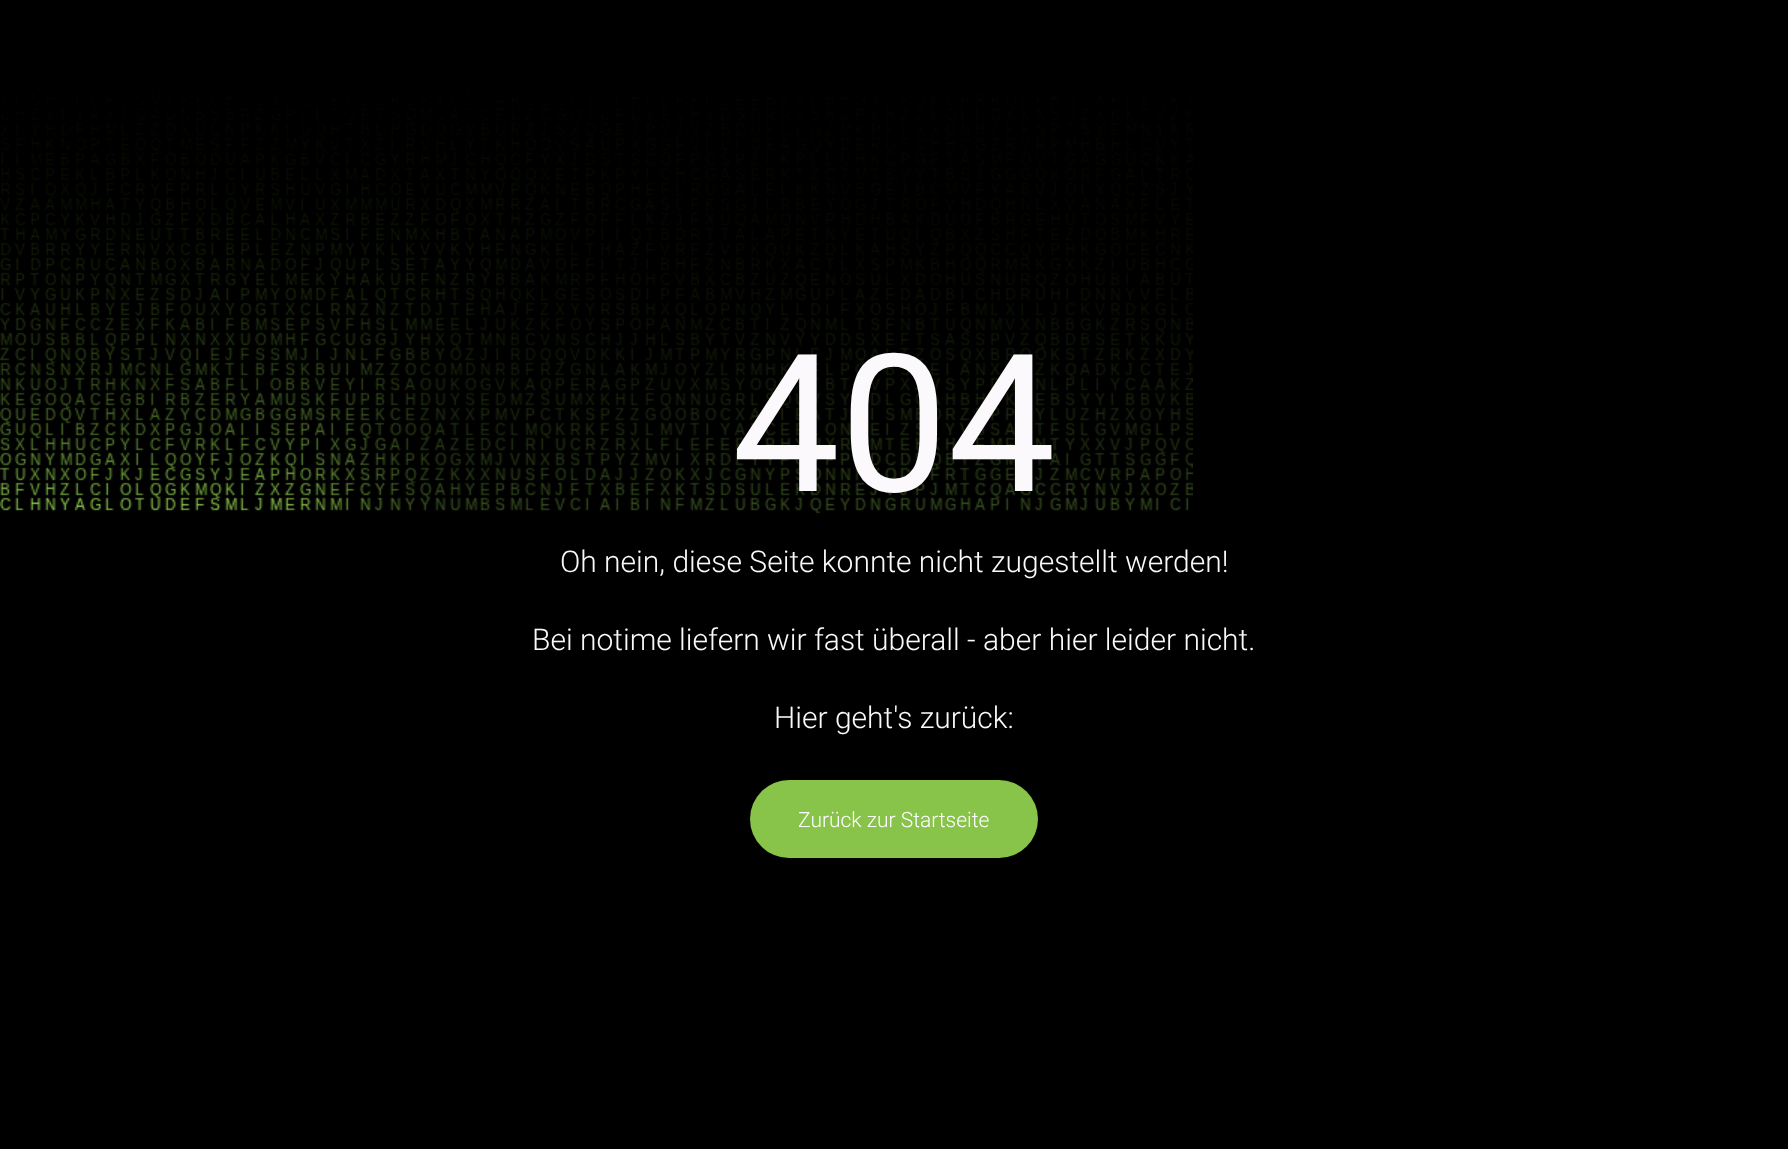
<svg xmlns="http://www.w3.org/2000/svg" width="1788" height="1149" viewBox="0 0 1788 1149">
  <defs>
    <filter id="blur1" x="-50%" y="-200%" width="200%" height="500%"><feGaussianBlur stdDeviation="45"/></filter>
  </defs>
  <rect width="100%" height="100%" fill="#000000"/>
  <image x="0" y="94" width="1193" height="420" href="img1.png"/>
  <rect x="351" y="149" width="1086" height="852" rx="426" fill="#000000" fill-opacity="0.6" filter="url(#blur1)"/>
  <text x="732" y="491" font-family="Roboto" font-size="192" fill="#fbf9fc">404</text>
  <text x="560" y="572" font-family="Roboto" font-size="30" font-weight="300" fill="#fbf9fc">Oh nein, diese Seite konnte nicht zugestellt werden!</text>
  <text x="532" y="650" font-family="Roboto" font-size="30" font-weight="300" fill="#fbf9fc">Bei notime liefern wir fast überall - aber hier leider nicht.</text>
  <text x="774" y="728" font-family="Roboto" font-size="30" font-weight="300" fill="#fbf9fc">Hier geht's zurück:</text>
  <rect x="750" y="780" width="288" height="78" rx="39" fill="#88c34a"/>
  <text x="798" y="827" font-family="Roboto" font-size="21" font-weight="300" fill="#ffffff">Zurück zur Startseite</text>
</svg>
